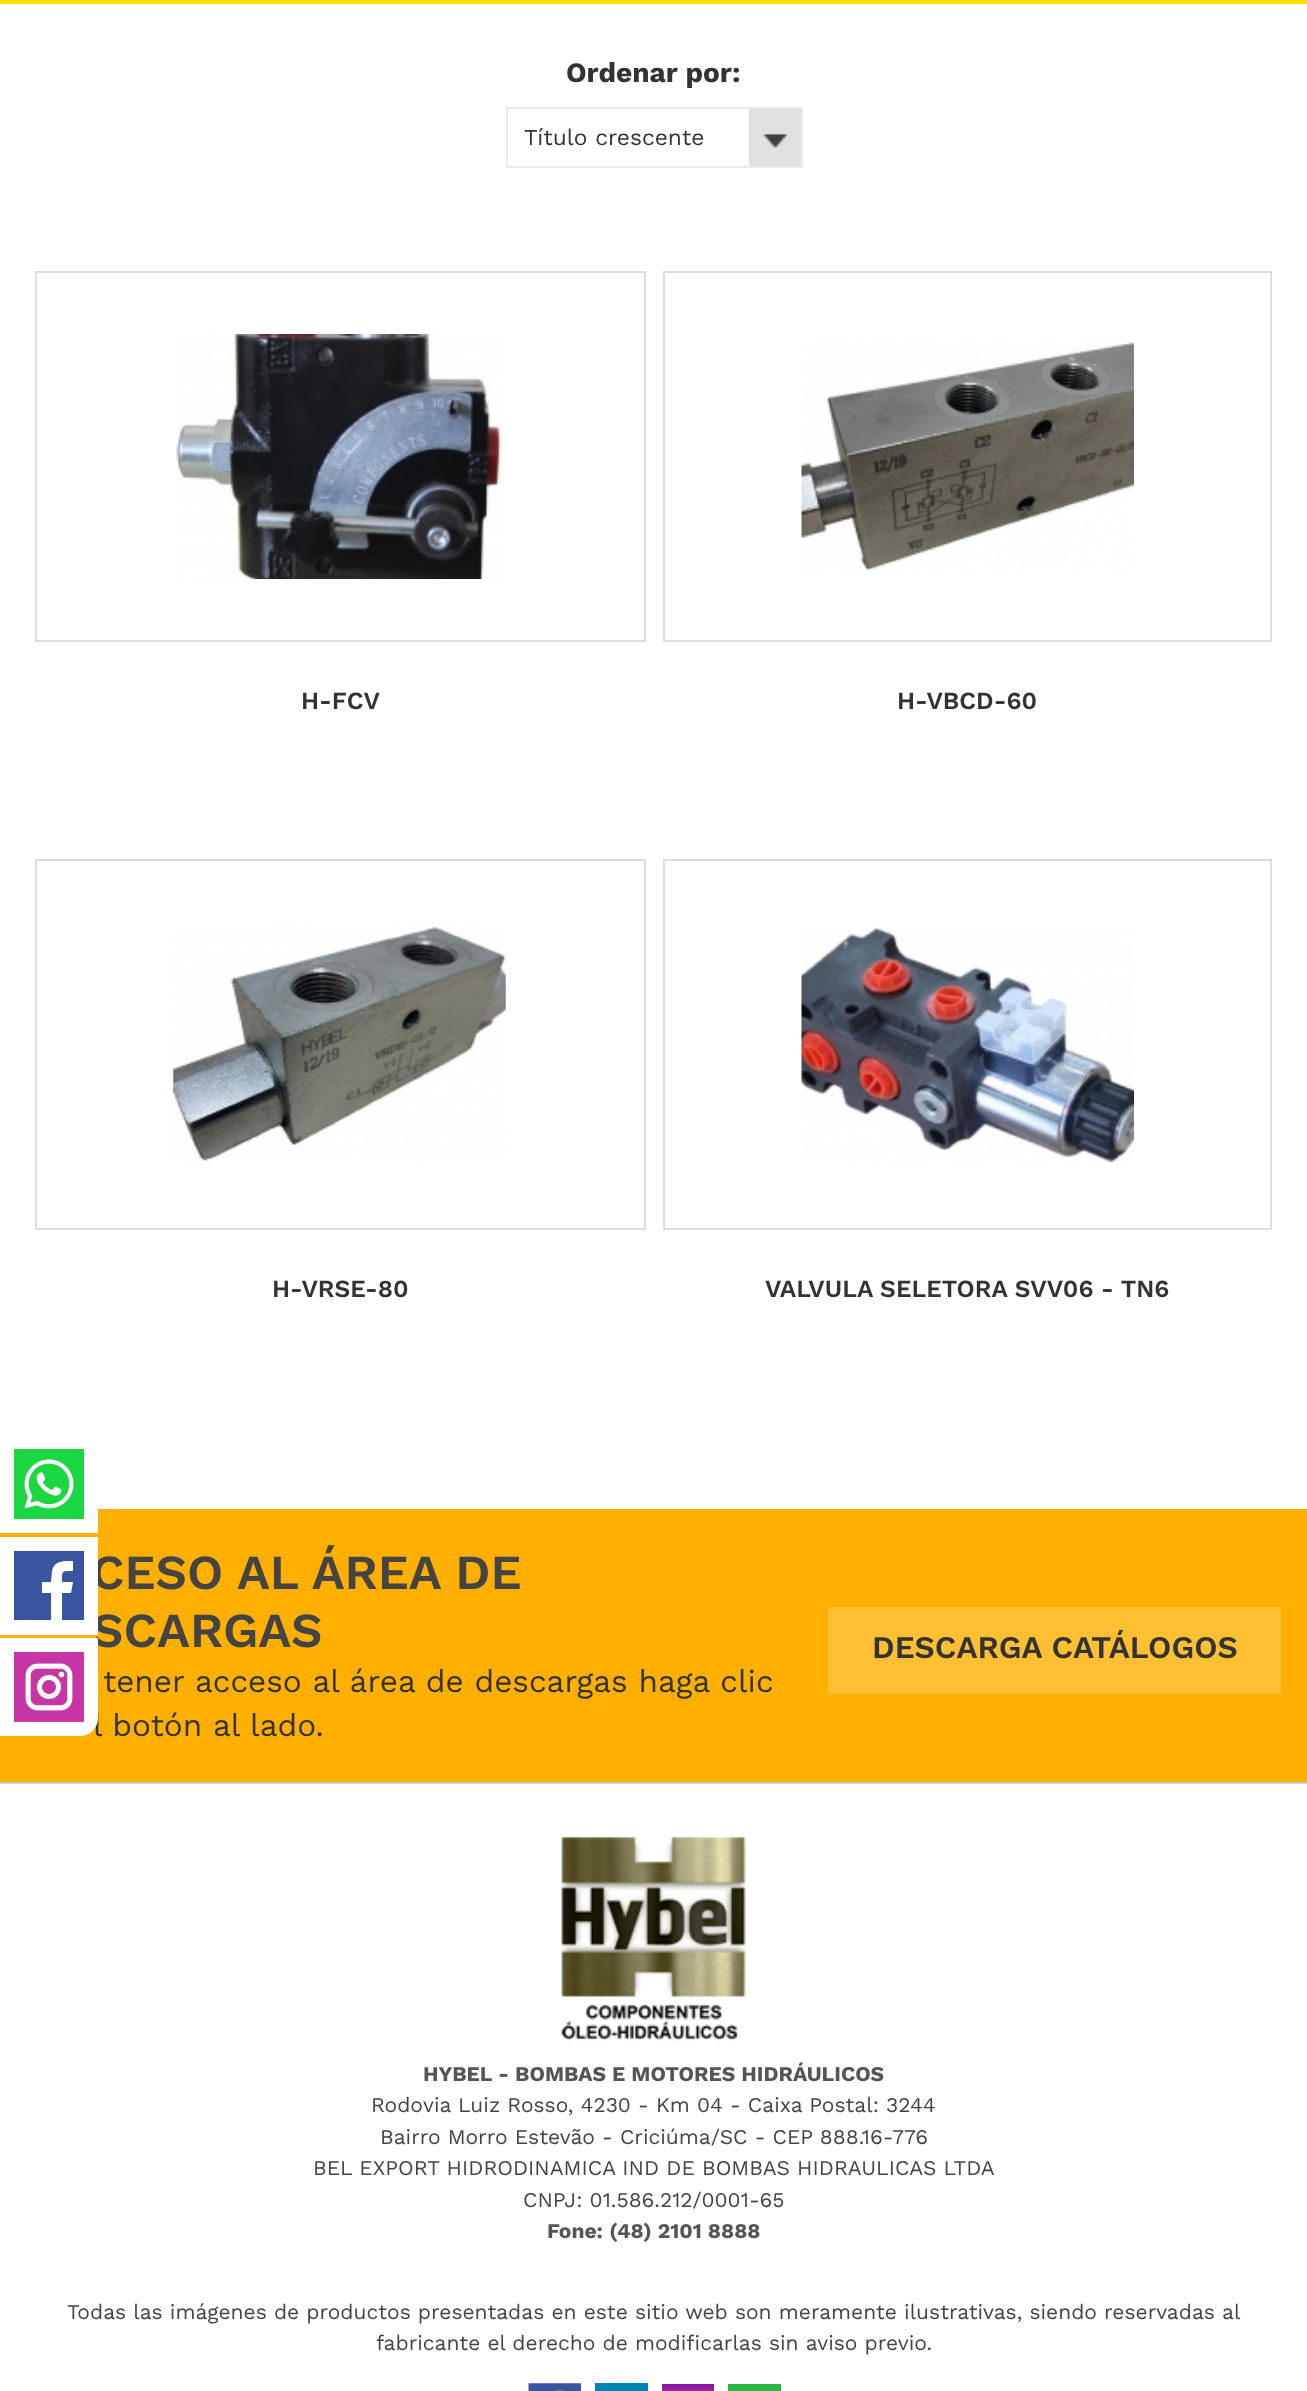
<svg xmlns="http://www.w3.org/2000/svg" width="1307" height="2391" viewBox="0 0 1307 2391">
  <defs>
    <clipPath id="clip1"><rect x="14" y="1551" width="70" height="70"/></clipPath>
  </defs>
  <rect width="100%" height="100%" fill="#ffffff"/>
  <rect x="0" y="0" width="1307" height="4" fill="#ffe300"/>
  <text x="566" y="82" font-family="Work Sans" font-size="28" font-weight="bold" fill="#333333">Ordenar por:</text>
  <image x="749" y="109" width="52" height="57" href="img1.png"/>
  <rect x="507" y="108" width="295" height="59" fill="none" stroke="#ebeaec" stroke-width="2"/>
  <text x="524" y="145" font-family="Work Sans" font-size="22.75" fill="#333333">Título crescente</text>
  <rect x="36" y="272" width="609" height="369" fill="none" stroke="#dddddd" stroke-width="2"/>
  <image x="176" y="334" width="329" height="245" href="img2.png"/>
  <text x="301" y="709" font-family="Work Sans" font-size="24.5" font-weight="600" fill="#333333">H-FCV</text>
  <rect x="664" y="272" width="607" height="369" fill="none" stroke="#dddddd" stroke-width="2"/>
  <image x="801" y="342" width="333" height="229" href="img3.png"/>
  <text x="897" y="709" font-family="Work Sans" font-size="24.5" font-weight="600" fill="#333333">H-VBCD-60</text>
  <rect x="36" y="860" width="609" height="369" fill="none" stroke="#dddddd" stroke-width="2"/>
  <image x="173" y="926" width="333" height="236" href="img4.png"/>
  <text x="272" y="1297" font-family="Work Sans" font-size="24.5" font-weight="600" fill="#333333">H-VRSE-80</text>
  <rect x="664" y="860" width="607" height="369" fill="none" stroke="#dddddd" stroke-width="2"/>
  <image x="801" y="927" width="333" height="236" href="img5.png"/>
  <text x="765" y="1297" font-family="Work Sans" font-size="24.5" font-weight="600" fill="#333333">VALVULA SELETORA SVV06 - TN6</text>
  <rect x="0" y="1509" width="1307" height="273" fill="#ffaf00"/>
  <text x="91" y="1589" font-family="Work Sans" font-size="49" font-weight="600" fill="#444444">CESO AL ÁREA DE</text>
  <text x="92" y="1647" font-family="Work Sans" font-size="49" font-weight="600" fill="#444444">SCARGAS</text>
  <text x="103" y="1692" font-family="Work Sans" font-size="31.5" fill="#333333">tener acceso al área de descargas haga clic</text>
  <text x="93" y="1736" font-family="Work Sans" font-size="31.5" fill="#333333">l botón al lado.</text>
  <rect x="828" y="1607" width="453" height="87" fill="#febf32"/>
  <text x="872" y="1658" font-family="Work Sans" font-size="31.5" font-weight="600" fill="#333333">DESCARGA CATÁLOGOS</text>
  <path d="M0 1435H80C90 1435 98 1443 98 1453V1533H0Z" fill="#ffffff"/>
  <image x="14" y="1449" width="70" height="70" href="img6.png"/>
  <rect x="0" y="1537" width="98" height="98" fill="#ffffff"/>
  <g clip-path="url(#clip1)">
    <path d="M14 1550V1620H51V1593H42V1582H51L52 1571C54 1560 65 1561 73 1561V1571C61 1571 62 1571 62 1582H73L71 1593H62V1620H84V1550Z" fill="#3a559f"/>
  </g>
  <path d="M0 1638H98V1718C98 1728 90 1736 80 1736H0Z" fill="#ffffff"/>
  <image x="14" y="1652" width="70" height="70" href="img7.png"/>
  <rect x="0" y="1782" width="1307" height="2" fill="#cccccc"/>
  <image x="561" y="1836" width="187" height="205" href="img8.png"/>
  <text x="423" y="2081" font-family="Work Sans" font-size="21" font-weight="bold" fill="#555555">HYBEL - BOMBAS E MOTORES HIDRÁULICOS</text>
  <text x="371" y="2112" font-family="Work Sans" font-size="21" fill="#444444">Rodovia Luiz Rosso, 4230 - Km 04 - Caixa Postal: 3244</text>
  <text x="380" y="2144" font-family="Work Sans" font-size="21" fill="#444444">Bairro Morro Estevão - Criciúma/SC - CEP 888.16-776</text>
  <text x="313" y="2175" font-family="Work Sans" font-size="21" fill="#444444">BEL EXPORT HIDRODINAMICA IND DE BOMBAS HIDRAULICAS LTDA</text>
  <text x="523" y="2207" font-family="Work Sans" font-size="21" fill="#444444">CNPJ: 01.586.212/0001-65</text>
  <text x="547" y="2238" font-family="Work Sans" font-size="21" font-weight="bold" fill="#555555">Fone: (48) 2101 8888</text>
  <text x="67" y="2319" font-family="Work Sans" font-size="21" fill="#444444">Todas las imágenes de productos presentadas en este sitio web son meramente ilustrativas, siendo reservadas al</text>
  <text x="376" y="2350" font-family="Work Sans" font-size="21" fill="#444444">fabricante el derecho de modificarlas sin aviso previo.</text>
  <image x="528" y="2383" width="53" height="8" href="img9.png"/>
  <rect x="595" y="2383" width="53" height="8" fill="#0084b1"/>
  <image x="662" y="2384" width="52" height="7" href="img10.png"/>
  <rect x="728" y="2384" width="53" height="7" fill="#2cb742"/>
</svg>
